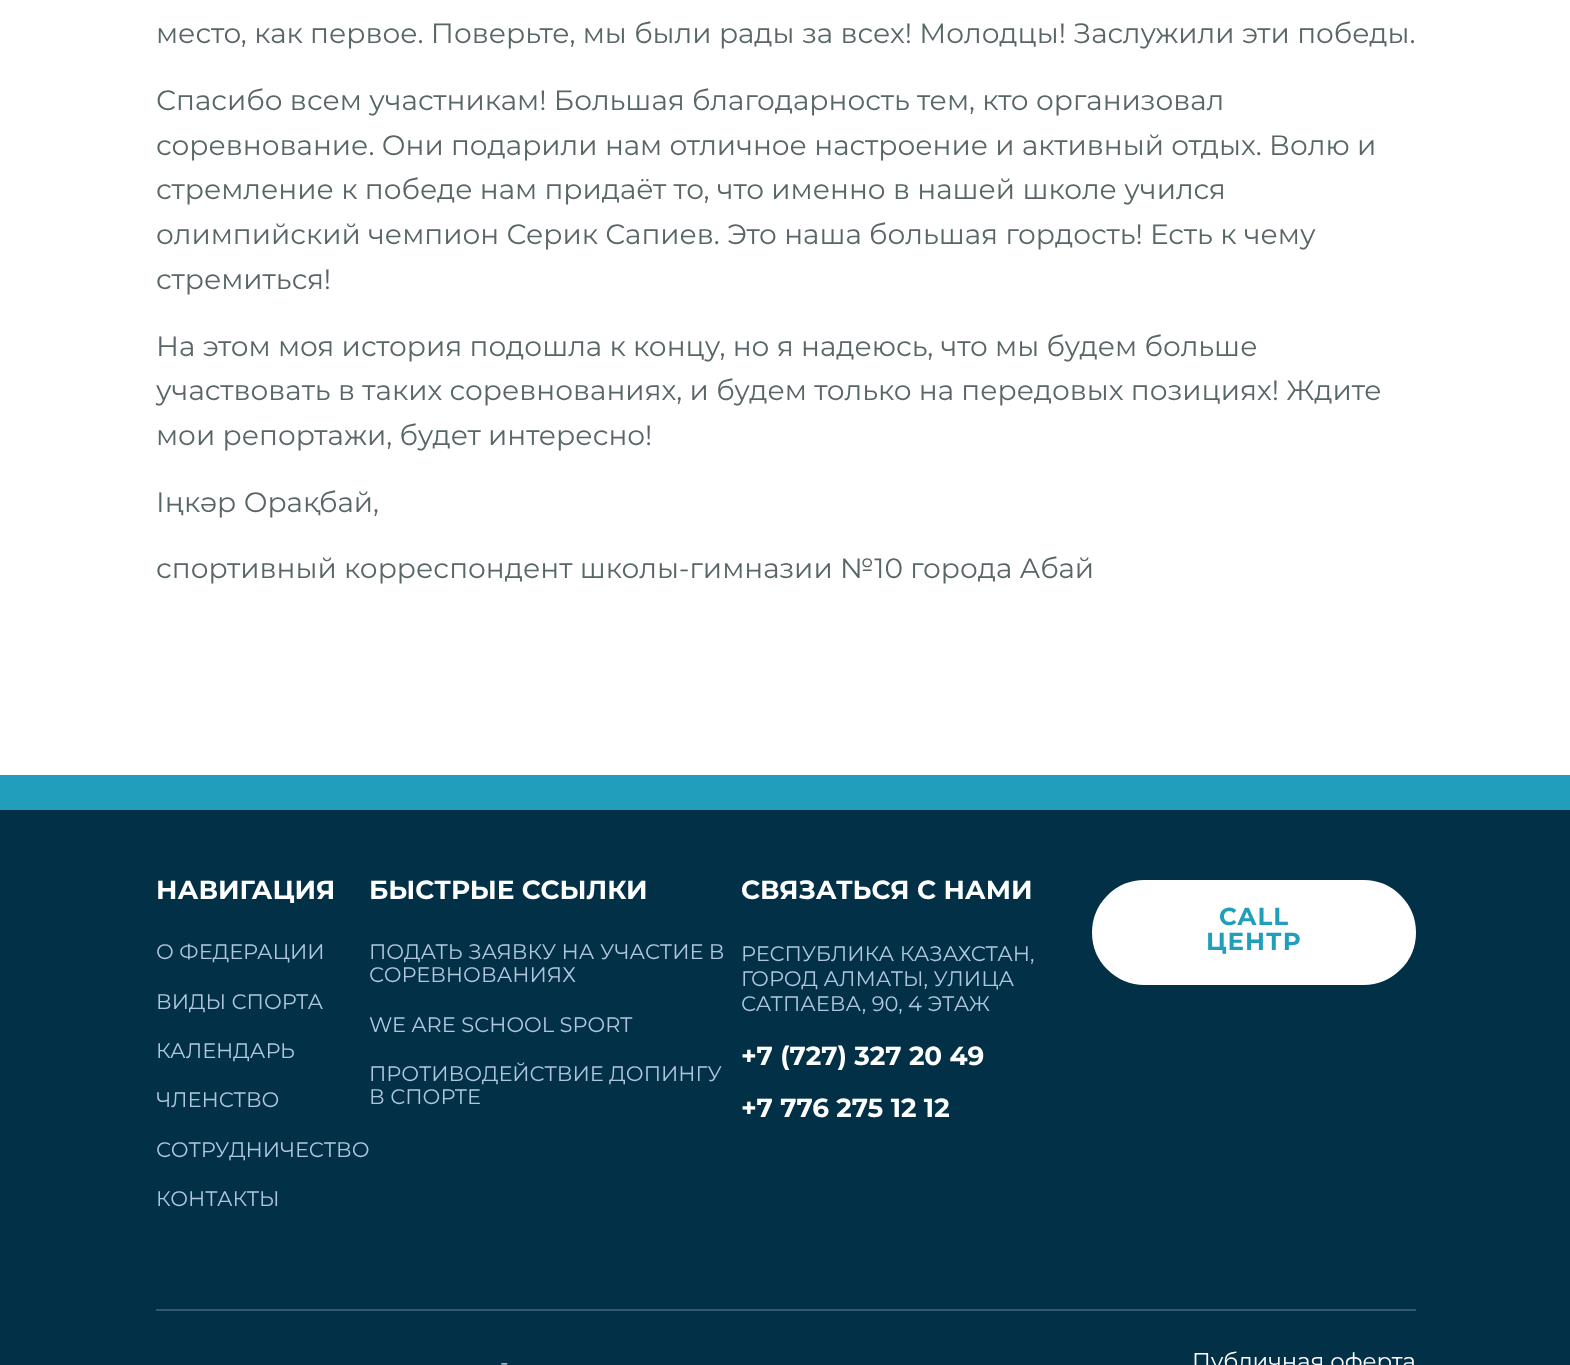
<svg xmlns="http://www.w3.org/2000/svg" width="1570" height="1365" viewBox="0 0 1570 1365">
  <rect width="100%" height="100%" fill="#ffffff"/>
  <text x="156" y="43" font-family="Montserrat" font-size="28" fill="#586667">место, как первое. Поверьте, мы были рады за всех! Молодцы! Заслужили эти победы.</text>
  <text x="156" y="110" font-family="Montserrat" font-size="28" fill="#586667">Спасибо всем участникам! Большая благодарность тем, кто организовал</text>
  <text x="156" y="155" font-family="Montserrat" font-size="28" fill="#586667">соревнование. Они подарили нам отличное настроение и активный отдых. Волю и</text>
  <text x="156" y="199" font-family="Montserrat" font-size="28" fill="#586667">стремление к победе нам придаёт то, что именно в нашей школе учился</text>
  <text x="156" y="244" font-family="Montserrat" font-size="28" fill="#586667">олимпийский чемпион Серик Сапиев. Это наша большая гордость! Есть к чему</text>
  <text x="156" y="289" font-family="Montserrat" font-size="28" fill="#586667">стремиться!</text>
  <text x="156" y="356" font-family="Montserrat" font-size="28" fill="#586667">На этом моя история подошла к концу, но я надеюсь, что мы будем больше</text>
  <text x="156" y="400" font-family="Montserrat" font-size="28" fill="#586667">участвовать в таких соревнованиях, и будем только на передовых позициях! Ждите</text>
  <text x="156" y="445" font-family="Montserrat" font-size="28" fill="#586667">мои репортажи, будет интересно!</text>
  <text x="156" y="512" font-family="Montserrat" font-size="28" fill="#586667">Іңкәр Орақбай,</text>
  <text x="156" y="578" font-family="Montserrat" font-size="28" fill="#586667">спортивный корреспондент школы-гимназии №10 города Абай</text>
  <rect x="0" y="810" width="1570" height="555" fill="#023047"/>
  <rect x="0" y="775" width="1570" height="35" fill="#219ebc"/>
  <rect x="156" y="1309" width="1260" height="2" fill="#35596c"/>
  <text x="156" y="899" font-family="Montserrat" font-size="26.25" font-weight="bold" fill="#ffffff">НАВИГАЦИЯ</text>
  <text x="156" y="959" font-family="Montserrat" font-size="21" fill="#afc7de">О ФЕДЕРАЦИИ</text>
  <text x="156" y="1009" font-family="Montserrat" font-size="21" fill="#afc7de">ВИДЫ СПОРТА</text>
  <text x="156" y="1058" font-family="Montserrat" font-size="21" fill="#afc7de">КАЛЕНДАРЬ</text>
  <text x="156" y="1107" font-family="Montserrat" font-size="21" fill="#afc7de">ЧЛЕНСТВО</text>
  <text x="156" y="1157" font-family="Montserrat" font-size="21" fill="#afc7de">СОТРУДНИЧЕСТВО</text>
  <text x="156" y="1206" font-family="Montserrat" font-size="21" fill="#afc7de">КОНТАКТЫ</text>
  <text x="369" y="899" font-family="Montserrat" font-size="26.25" font-weight="bold" fill="#ffffff">БЫСТРЫЕ ССЫЛКИ</text>
  <text x="369" y="959" font-family="Montserrat" font-size="21" fill="#afc7de">ПОДАТЬ ЗАЯВКУ НА УЧАСТИЕ В</text>
  <text x="369" y="982" font-family="Montserrat" font-size="21" fill="#afc7de">СОРЕВНОВАНИЯХ</text>
  <text x="369" y="1032" font-family="Montserrat" font-size="21" fill="#afc7de">WE ARE SCHOOL SPORT</text>
  <text x="369" y="1081" font-family="Montserrat" font-size="21" fill="#afc7de">ПРОТИВОДЕЙСТВИЕ ДОПИНГУ</text>
  <text x="369" y="1104" font-family="Montserrat" font-size="21" fill="#afc7de">В СПОРТЕ</text>
  <text x="741" y="899" font-family="Montserrat" font-size="26.25" font-weight="bold" fill="#ffffff">СВЯЗАТЬСЯ С НАМИ</text>
  <text x="741" y="961" font-family="Montserrat" font-size="21" fill="#afc7de">РЕСПУБЛИКА КАЗАХСТАН,</text>
  <text x="741" y="986" font-family="Montserrat" font-size="21" fill="#afc7de">ГОРОД АЛМАТЫ, УЛИЦА</text>
  <text x="741" y="1011" font-family="Montserrat" font-size="21" fill="#afc7de">САТПАЕВА, 90, 4 ЭТАЖ</text>
  <text x="741" y="1065" font-family="Montserrat" font-size="26.25" font-weight="bold" fill="#ffffff">+7 (727) 327 20 49</text>
  <text x="741" y="1117" font-family="Montserrat" font-size="26.25" font-weight="bold" fill="#ffffff">+7 776 275 12 12</text>
  <rect x="1093" y="881" width="322" height="103" rx="51.5" fill="#ffffff" stroke="#ffffff" stroke-width="2"/>
  <text x="1219" y="925" font-family="Montserrat" font-size="24.5" font-weight="bold" letter-spacing="1" fill="#219ebc">CALL</text>
  <text x="1206" y="950" font-family="Montserrat" font-size="24.5" font-weight="bold" letter-spacing="1" fill="#219ebc">ЦЕНТР</text>
  <text x="500" y="1370" font-family="Montserrat" font-size="22.75" font-weight="300" fill="#ffffff">-</text>
  <text x="1192" y="1369" font-family="Montserrat" font-size="22.75" fill="#ffffff">Публичная оферта</text>
</svg>
